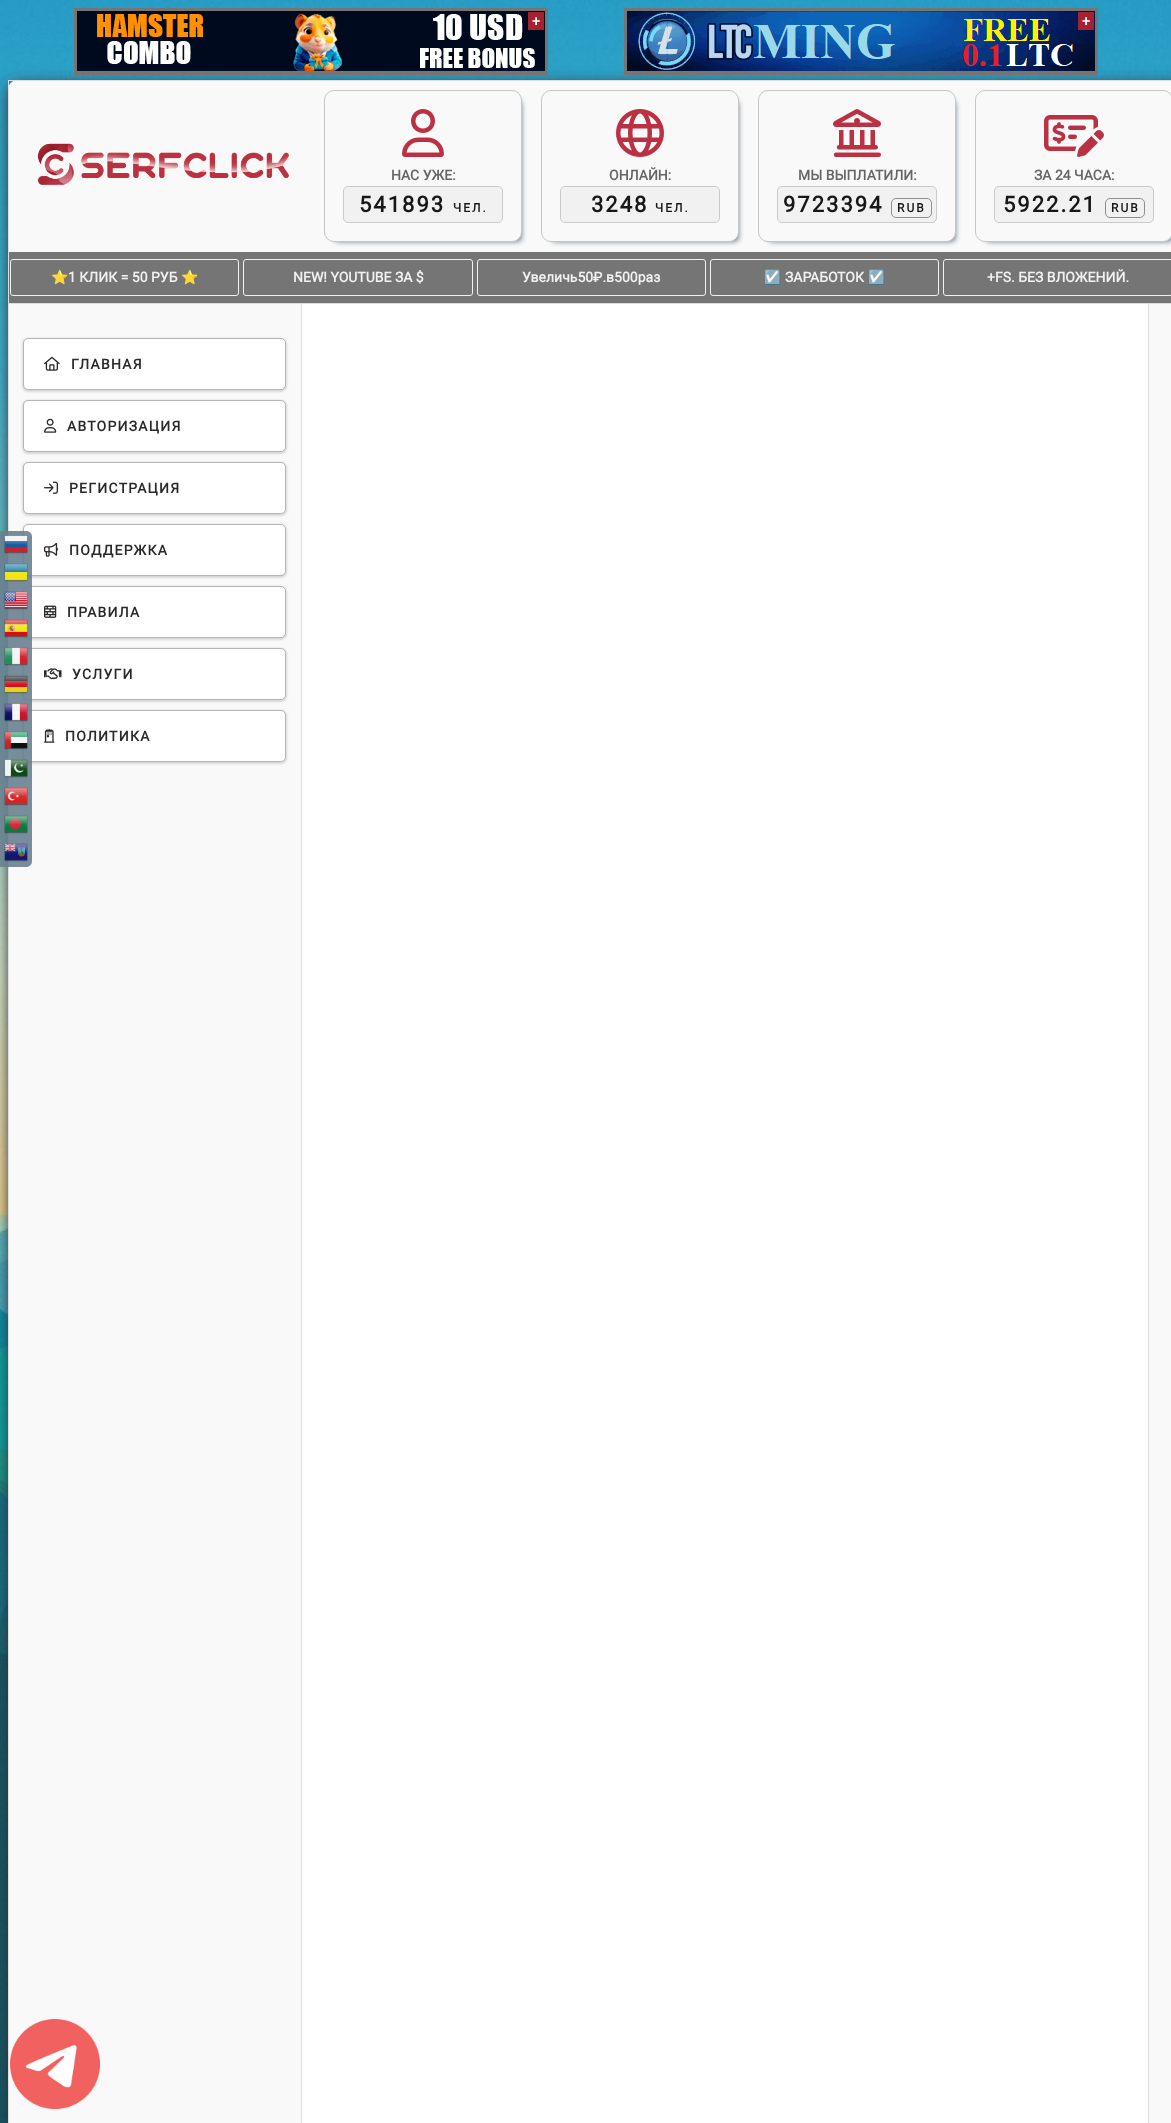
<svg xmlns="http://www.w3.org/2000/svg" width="1171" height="2123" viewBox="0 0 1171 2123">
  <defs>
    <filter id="blur1" x="-50%" y="-200%" width="200%" height="500%"><feGaussianBlur stdDeviation="7.5"/></filter>
    <filter id="blur2" x="-50%" y="-200%" width="200%" height="500%"><feGaussianBlur stdDeviation="1.5"/></filter>
    <filter id="blur3" x="-50%" y="-200%" width="200%" height="500%"><feGaussianBlur stdDeviation="2.5"/></filter>
  </defs>
  <rect width="100%" height="100%" fill="#ffffff"/>
  <image x="0" y="0" width="1171" height="2123" href="img1.png"/>
  <rect x="8" y="84" width="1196" height="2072" rx="10" fill="#333333" filter="url(#blur1)"/>
  <rect x="8" y="80" width="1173" height="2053" rx="10" fill="#f9f9f9"/>
  <path d="M18 80H1171C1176.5 80 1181 84.5 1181 90V304H8V90C8 84.5 12.5 80 18 80Z" fill="#f9f9f9"/>
  <rect x="1148" y="303" width="23" height="1" fill="#dddddd"/>
  <rect x="1148" y="303" width="1" height="1820" fill="#dddddd"/>
  <rect x="301" y="303" width="848" height="1" fill="#dddddd"/>
  <rect x="301" y="303" width="1" height="1820" fill="#dddddd"/>
  <rect x="8" y="303" width="294" height="1" fill="#dddddd"/>
  <rect x="8" y="303" width="1" height="1820" fill="#dddddd"/>
  <rect x="23" y="525" width="263" height="52" rx="5" fill="#261e1c" fill-opacity="0.26" filter="url(#blur2)"/>
  <rect x="23.5" y="524.5" width="262" height="51" rx="4.5" fill="#ffffff" stroke="#b5b5b5"/>
  <rect x="23" y="587" width="263" height="52" rx="5" fill="#261e1c" fill-opacity="0.26" filter="url(#blur2)"/>
  <rect x="23.5" y="586.5" width="262" height="51" rx="4.5" fill="#ffffff" stroke="#b5b5b5"/>
  <rect x="23" y="649" width="263" height="52" rx="5" fill="#261e1c" fill-opacity="0.26" filter="url(#blur2)"/>
  <rect x="23.5" y="648.5" width="262" height="51" rx="4.5" fill="#ffffff" stroke="#b5b5b5"/>
  <rect x="23" y="711" width="263" height="52" rx="5" fill="#261e1c" fill-opacity="0.26" filter="url(#blur2)"/>
  <rect x="23.5" y="710.5" width="262" height="51" rx="4.5" fill="#ffffff" stroke="#b5b5b5"/>
  <path d="M0 531H26C29.5 531 32 533.5 32 537V861C32 864.5 29.5 867 26 867H0Z" fill="#688190" fill-opacity="0.9"/>
  <image x="4" y="535" width="24" height="19" href="img2.png"/>
  <image x="4" y="563" width="24" height="19" href="img3.png"/>
  <image x="4" y="591" width="24" height="19" href="img4.png"/>
  <image x="4" y="619" width="24" height="19" href="img5.png"/>
  <image x="4" y="647" width="24" height="19" href="img6.png"/>
  <image x="4" y="675" width="24" height="19" href="img7.png"/>
  <image x="4" y="703" width="24" height="19" href="img8.png"/>
  <image x="4" y="731" width="24" height="19" href="img9.png"/>
  <image x="4" y="759" width="24" height="19" href="img10.png"/>
  <image x="4" y="787" width="24" height="19" href="img11.png"/>
  <image x="4" y="815" width="24" height="19" href="img12.png"/>
  <image x="4" y="843" width="24" height="19" href="img13.png"/>
  <rect x="74" y="8" width="474" height="67" fill="#757575"/>
  <image x="77" y="11" width="468" height="60" href="img14.png"/>
  <rect x="528" y="12" width="16" height="18" fill="#a62232"/>
  <text x="532" y="26" font-family="Roboto" font-size="14" font-weight="bold" fill="#ffffff">+</text>
  <rect x="624" y="8" width="474" height="67" fill="#757575"/>
  <image x="627" y="11" width="468" height="60" href="img15.png"/>
  <rect x="1078" y="12" width="16" height="18" fill="#a62232"/>
  <text x="1082" y="26" font-family="Roboto" font-size="14" font-weight="bold" fill="#ffffff">+</text>
  <rect x="8" y="80" width="1163" height="1" fill="#dddddd"/>
  <rect x="8" y="80" width="1" height="224" fill="#dddddd"/>
  <image x="37" y="143" width="252" height="42" href="img16.png"/>
  <rect x="334" y="100" width="188" height="142" rx="5" fill="#223c50" fill-opacity="0.6" filter="url(#blur3)"/>
  <rect x="324.5" y="90.5" width="197" height="151" rx="9.5" fill="#f9f9f9" stroke="#c6c6c6"/>
  <image x="402" y="109" width="42" height="48" href="img17.png"/>
  <text x="391" y="180" font-family="Roboto" font-size="14" font-weight="bold" fill="#666666">НАС УЖЕ:</text>
  <rect x="343.5" y="186.5" width="159" height="36" rx="4.5" fill="#f1f1f1" stroke="#cacaca"/>
  <text x="359" y="212" font-family="Roboto" font-size="22" font-weight="bold" letter-spacing="2" fill="#171717">541893</text>
  <text x="453" y="212" font-family="Roboto" font-size="12" font-weight="bold" letter-spacing="2" fill="#171717">ЧЕЛ.</text>
  <rect x="551" y="100" width="188" height="142" rx="5" fill="#223c50" fill-opacity="0.6" filter="url(#blur3)"/>
  <rect x="541.5" y="90.5" width="197" height="151" rx="9.5" fill="#f9f9f9" stroke="#c6c6c6"/>
  <image x="616" y="109" width="48" height="48" href="img18.png"/>
  <text x="609" y="180" font-family="Roboto" font-size="14" font-weight="bold" fill="#666666">ОНЛАЙН:</text>
  <rect x="560.5" y="186.5" width="159" height="36" rx="4.5" fill="#f1f1f1" stroke="#cacaca"/>
  <text x="591" y="212" font-family="Roboto" font-size="22" font-weight="bold" letter-spacing="2" fill="#171717">3248</text>
  <text x="655" y="212" font-family="Roboto" font-size="12" font-weight="bold" letter-spacing="2" fill="#171717">ЧЕЛ.</text>
  <rect x="768" y="100" width="188" height="142" rx="5" fill="#223c50" fill-opacity="0.6" filter="url(#blur3)"/>
  <rect x="758.5" y="90.5" width="197" height="151" rx="9.5" fill="#f9f9f9" stroke="#c6c6c6"/>
  <image x="833" y="109" width="48" height="48" href="img19.png"/>
  <text x="798" y="180" font-family="Roboto" font-size="14" font-weight="bold" fill="#666666">МЫ ВЫПЛАТИЛИ:</text>
  <rect x="777.5" y="186.5" width="159" height="36" rx="4.5" fill="#f1f1f1" stroke="#cacaca"/>
  <text x="783" y="212" font-family="Roboto" font-size="22" font-weight="bold" letter-spacing="2" fill="#171717">9723394</text>
  <rect x="891.5" y="198.5" width="40" height="19" rx="4.5" fill="none" stroke="#8e8e8e"/>
  <text x="897" y="212" font-family="Roboto" font-size="12" font-weight="bold" letter-spacing="2" fill="#171717">RUB</text>
  <rect x="985" y="100" width="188" height="142" rx="5" fill="#223c50" fill-opacity="0.6" filter="url(#blur3)"/>
  <rect x="975.5" y="90.5" width="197" height="151" rx="9.5" fill="#f9f9f9" stroke="#c6c6c6"/>
  <image x="1044" y="115" width="60" height="42" href="img20.png"/>
  <text x="1034" y="180" font-family="Roboto" font-size="14" font-weight="bold" fill="#666666">ЗА 24 ЧАСА:</text>
  <rect x="994.5" y="186.5" width="159" height="36" rx="4.5" fill="#f1f1f1" stroke="#cacaca"/>
  <text x="1003" y="212" font-family="Roboto" font-size="22" font-weight="bold" letter-spacing="2" fill="#171717">5922.21</text>
  <rect x="1105.5" y="198.5" width="39" height="19" rx="4.5" fill="none" stroke="#8e8e8e"/>
  <text x="1111" y="212" font-family="Roboto" font-size="12" font-weight="bold" letter-spacing="2" fill="#171717">RUB</text>
  <rect x="9" y="252" width="1162" height="51" fill="#757575"/>
  <rect x="10.5" y="259.5" width="228" height="36" rx="2.5" fill="none" stroke="#f1f1f1"/>
  <text x="51" y="282" font-family="Noto Color Emoji" font-size="14" font-weight="bold" fill="#f1f1f1">⭐</text>
  <text x="68" y="282" font-family="Roboto" font-size="14" font-weight="bold" fill="#f1f1f1">1 КЛИК = 50 РУБ</text>
  <text x="181" y="282" font-family="Noto Color Emoji" font-size="14" font-weight="bold" fill="#f1f1f1">⭐</text>
  <rect x="243.5" y="259.5" width="229" height="36" rx="2.5" fill="none" stroke="#f1f1f1"/>
  <text x="293" y="282" font-family="Roboto" font-size="14" font-weight="bold" fill="#f1f1f1">NEW! YOUTUBE ЗА $</text>
  <rect x="477.5" y="259.5" width="228" height="36" rx="2.5" fill="none" stroke="#f1f1f1"/>
  <text x="522" y="282" font-family="Roboto" font-size="14" font-weight="bold" fill="#f1f1f1">Увеличь50₽.в500раз</text>
  <rect x="710.5" y="259.5" width="228" height="36" rx="2.5" fill="none" stroke="#f1f1f1"/>
  <text x="764" y="282" font-family="Noto Color Emoji" font-size="14" font-weight="bold" fill="#f1f1f1">☑️</text>
  <text x="785" y="282" font-family="Roboto" font-size="14" font-weight="bold" fill="#f1f1f1">ЗАРАБОТОК</text>
  <text x="868" y="282" font-family="Noto Color Emoji" font-size="14" font-weight="bold" fill="#f1f1f1">☑️</text>
  <rect x="943.5" y="259.5" width="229" height="36" rx="2.5" fill="none" stroke="#f1f1f1"/>
  <text x="987" y="282" font-family="Roboto" font-size="14" font-weight="bold" fill="#f1f1f1">+FS. БЕЗ ВЛОЖЕНИЙ.</text>
  <rect x="23" y="339" width="263" height="52" rx="5" fill="#261e1c" fill-opacity="0.26" filter="url(#blur2)"/>
  <rect x="23.5" y="338.5" width="262" height="51" rx="4.5" fill="#ffffff" stroke="#b5b5b5"/>
  <image x="44" y="356" width="16" height="15" href="img21.png"/>
  <text x="71" y="369" font-family="Roboto" font-size="14" font-weight="bold" letter-spacing="1.25" fill="#292929">ГЛАВНАЯ</text>
  <rect x="23" y="401" width="263" height="52" rx="5" fill="#261e1c" fill-opacity="0.26" filter="url(#blur2)"/>
  <rect x="23.5" y="400.5" width="262" height="51" rx="4.5" fill="#ffffff" stroke="#b5b5b5"/>
  <image x="44" y="418" width="13" height="15" href="img22.png"/>
  <text x="67" y="431" font-family="Roboto" font-size="14" font-weight="bold" letter-spacing="1.25" fill="#292929">АВТОРИЗАЦИЯ</text>
  <rect x="23" y="463" width="263" height="52" rx="5" fill="#261e1c" fill-opacity="0.26" filter="url(#blur2)"/>
  <rect x="23.5" y="462.5" width="262" height="51" rx="4.5" fill="#ffffff" stroke="#b5b5b5"/>
  <image x="44" y="481" width="14" height="13" href="img23.png"/>
  <text x="69" y="493" font-family="Roboto" font-size="14" font-weight="bold" letter-spacing="1.25" fill="#292929">РЕГИСТРАЦИЯ</text>
  <image x="44" y="542" width="14" height="15" href="img24.png"/>
  <text x="69" y="555" font-family="Roboto" font-size="14" font-weight="bold" letter-spacing="1.25" fill="#292929">ПОДДЕРЖКА</text>
  <image x="44" y="605" width="13" height="13" href="img25.png"/>
  <text x="67" y="617" font-family="Roboto" font-size="14" font-weight="bold" letter-spacing="1.25" fill="#292929">ПРАВИЛА</text>
  <image x="44" y="668" width="18" height="12" href="img26.png"/>
  <text x="72" y="679" font-family="Roboto" font-size="14" font-weight="bold" letter-spacing="1.25" fill="#292929">УСЛУГИ</text>
  <image x="44" y="728" width="11" height="15" href="img27.png"/>
  <text x="65" y="741" font-family="Roboto" font-size="14" font-weight="bold" letter-spacing="1.25" fill="#292929">ПОЛИТИКА</text>
  <rect x="302" y="304" width="846" height="1819" fill="#ffffff"/>
  <image x="10" y="2019" width="90" height="90" href="img28.png"/>
</svg>
